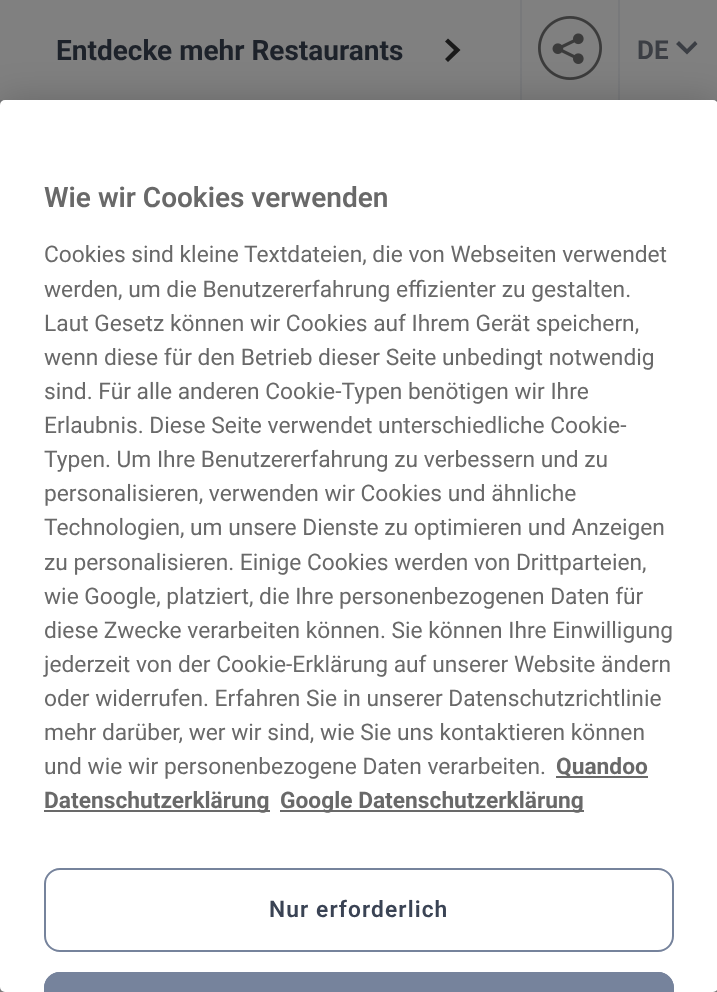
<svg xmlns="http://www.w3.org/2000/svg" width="717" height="992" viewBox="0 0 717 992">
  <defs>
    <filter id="blur1" x="-50%" y="-200%" width="200%" height="500%"><feGaussianBlur stdDeviation="18"/></filter>
  </defs>
  <rect width="100%" height="100%" fill="#808080"/>
  <rect x="0" y="100" width="717" height="2" fill="#78797b"/>
  <text x="56" y="60" font-family="Roboto" font-size="28" font-weight="bold" fill="#1d222a">Entdecke mehr Restaurants</text>
  <path d="M448 38.5L445 41.5L454 50L445 59L448 62L460.5 50Z" fill="#1a1a1a"/>
  <rect x="520" y="0" width="2" height="100" fill="#78797b"/>
  <image x="538" y="16" width="64" height="64" href="img1.png"/>
  <rect x="618" y="0" width="2" height="100" fill="#78797b"/>
  <text x="637" y="59" font-family="Roboto" font-size="26" font-weight="bold" fill="#3b3e44">DE</text>
  <path d="M697.5 44L695 41L687 49L679 41L676 44L687 54.5Z" fill="#3b3e44"/>
  <rect x="0" y="100" width="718" height="892" rx="5" fill="#000000" fill-opacity="0.2" filter="url(#blur1)"/>
  <rect x="0" y="100" width="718" height="892" rx="5" fill="#ffffff"/>
  <text x="44" y="207" font-family="Roboto" font-size="28" font-weight="600" fill="#696969">Wie wir Cookies verwenden</text>
  <text x="44" y="262" font-family="Roboto" font-size="22.75" fill="#696969">Cookies sind kleine Textdateien, die von Webseiten verwendet</text>
  <text x="44" y="297" font-family="Roboto" font-size="22.75" fill="#696969">werden, um die Benutzererfahrung effizienter zu gestalten.</text>
  <text x="44" y="331" font-family="Roboto" font-size="22.75" fill="#696969">Laut Gesetz können wir Cookies auf Ihrem Gerät speichern,</text>
  <text x="44" y="365" font-family="Roboto" font-size="22.75" fill="#696969">wenn diese für den Betrieb dieser Seite unbedingt notwendig</text>
  <text x="44" y="399" font-family="Roboto" font-size="22.75" fill="#696969">sind. Für alle anderen Cookie-Typen benötigen wir Ihre</text>
  <text x="44" y="433" font-family="Roboto" font-size="22.75" fill="#696969">Erlaubnis. Diese Seite verwendet unterschiedliche Cookie-</text>
  <text x="44" y="467" font-family="Roboto" font-size="22.75" fill="#696969">Typen. Um Ihre Benutzererfahrung zu verbessern und zu</text>
  <text x="44" y="501" font-family="Roboto" font-size="22.75" fill="#696969">personalisieren, verwenden wir Cookies und ähnliche</text>
  <text x="44" y="535" font-family="Roboto" font-size="22.75" fill="#696969">Technologien, um unsere Dienste zu optimieren und Anzeigen</text>
  <text x="44" y="570" font-family="Roboto" font-size="22.75" fill="#696969">zu personalisieren. Einige Cookies werden von Drittparteien,</text>
  <text x="44" y="604" font-family="Roboto" font-size="22.75" fill="#696969">wie Google, platziert, die Ihre personenbezogenen Daten für</text>
  <text x="44" y="638" font-family="Roboto" font-size="22.75" fill="#696969">diese Zwecke verarbeiten können. Sie können Ihre Einwilligung</text>
  <text x="44" y="672" font-family="Roboto" font-size="22.75" fill="#696969">jederzeit von der Cookie-Erklärung auf unserer Website ändern</text>
  <text x="44" y="706" font-family="Roboto" font-size="22.75" fill="#696969">oder widerrufen. Erfahren Sie in unserer Datenschutzrichtlinie</text>
  <text x="44" y="740" font-family="Roboto" font-size="22.75" fill="#696969">mehr darüber, wer wir sind, wie Sie uns kontaktieren können</text>
  <text x="44" y="774" font-family="Roboto" font-size="22.75" fill="#696969">und wie wir personenbezogene Daten verarbeiten.</text>
  <rect x="556" y="776" width="92" height="2" fill="#696969"/>
  <text x="556" y="774" font-family="Roboto" font-size="22.75" font-weight="bold" fill="#696969">Quandoo</text>
  <rect x="44" y="810" width="226" height="2" fill="#696969"/>
  <text x="44" y="808" font-family="Roboto" font-size="22.75" font-weight="bold" fill="#696969">Datenschutzerklärung</text>
  <rect x="280" y="810" width="304" height="2" fill="#696969"/>
  <text x="280" y="808" font-family="Roboto" font-size="22.75" font-weight="bold" fill="#696969">Google Datenschutzerklärung</text>
  <rect x="45" y="869" width="628" height="82" rx="15" fill="none" stroke="#76839c" stroke-width="2"/>
  <text x="269" y="917" font-family="Roboto" font-size="22.75" font-weight="600" letter-spacing="1.1" fill="#3a4354">Nur erforderlich</text>
  <path d="M60 972H658C667 972 674 979 674 988V992H44V988C44 979 51 972 60 972Z" fill="#76839c"/>
  <path d="M60 972C51 972 44 979 44 988V992H46V988C46 980 52 974 60 974H658C666 974 672 980 672 988V992H674V988C674 979 667 972 658 972Z" fill="#76839c"/>
</svg>
